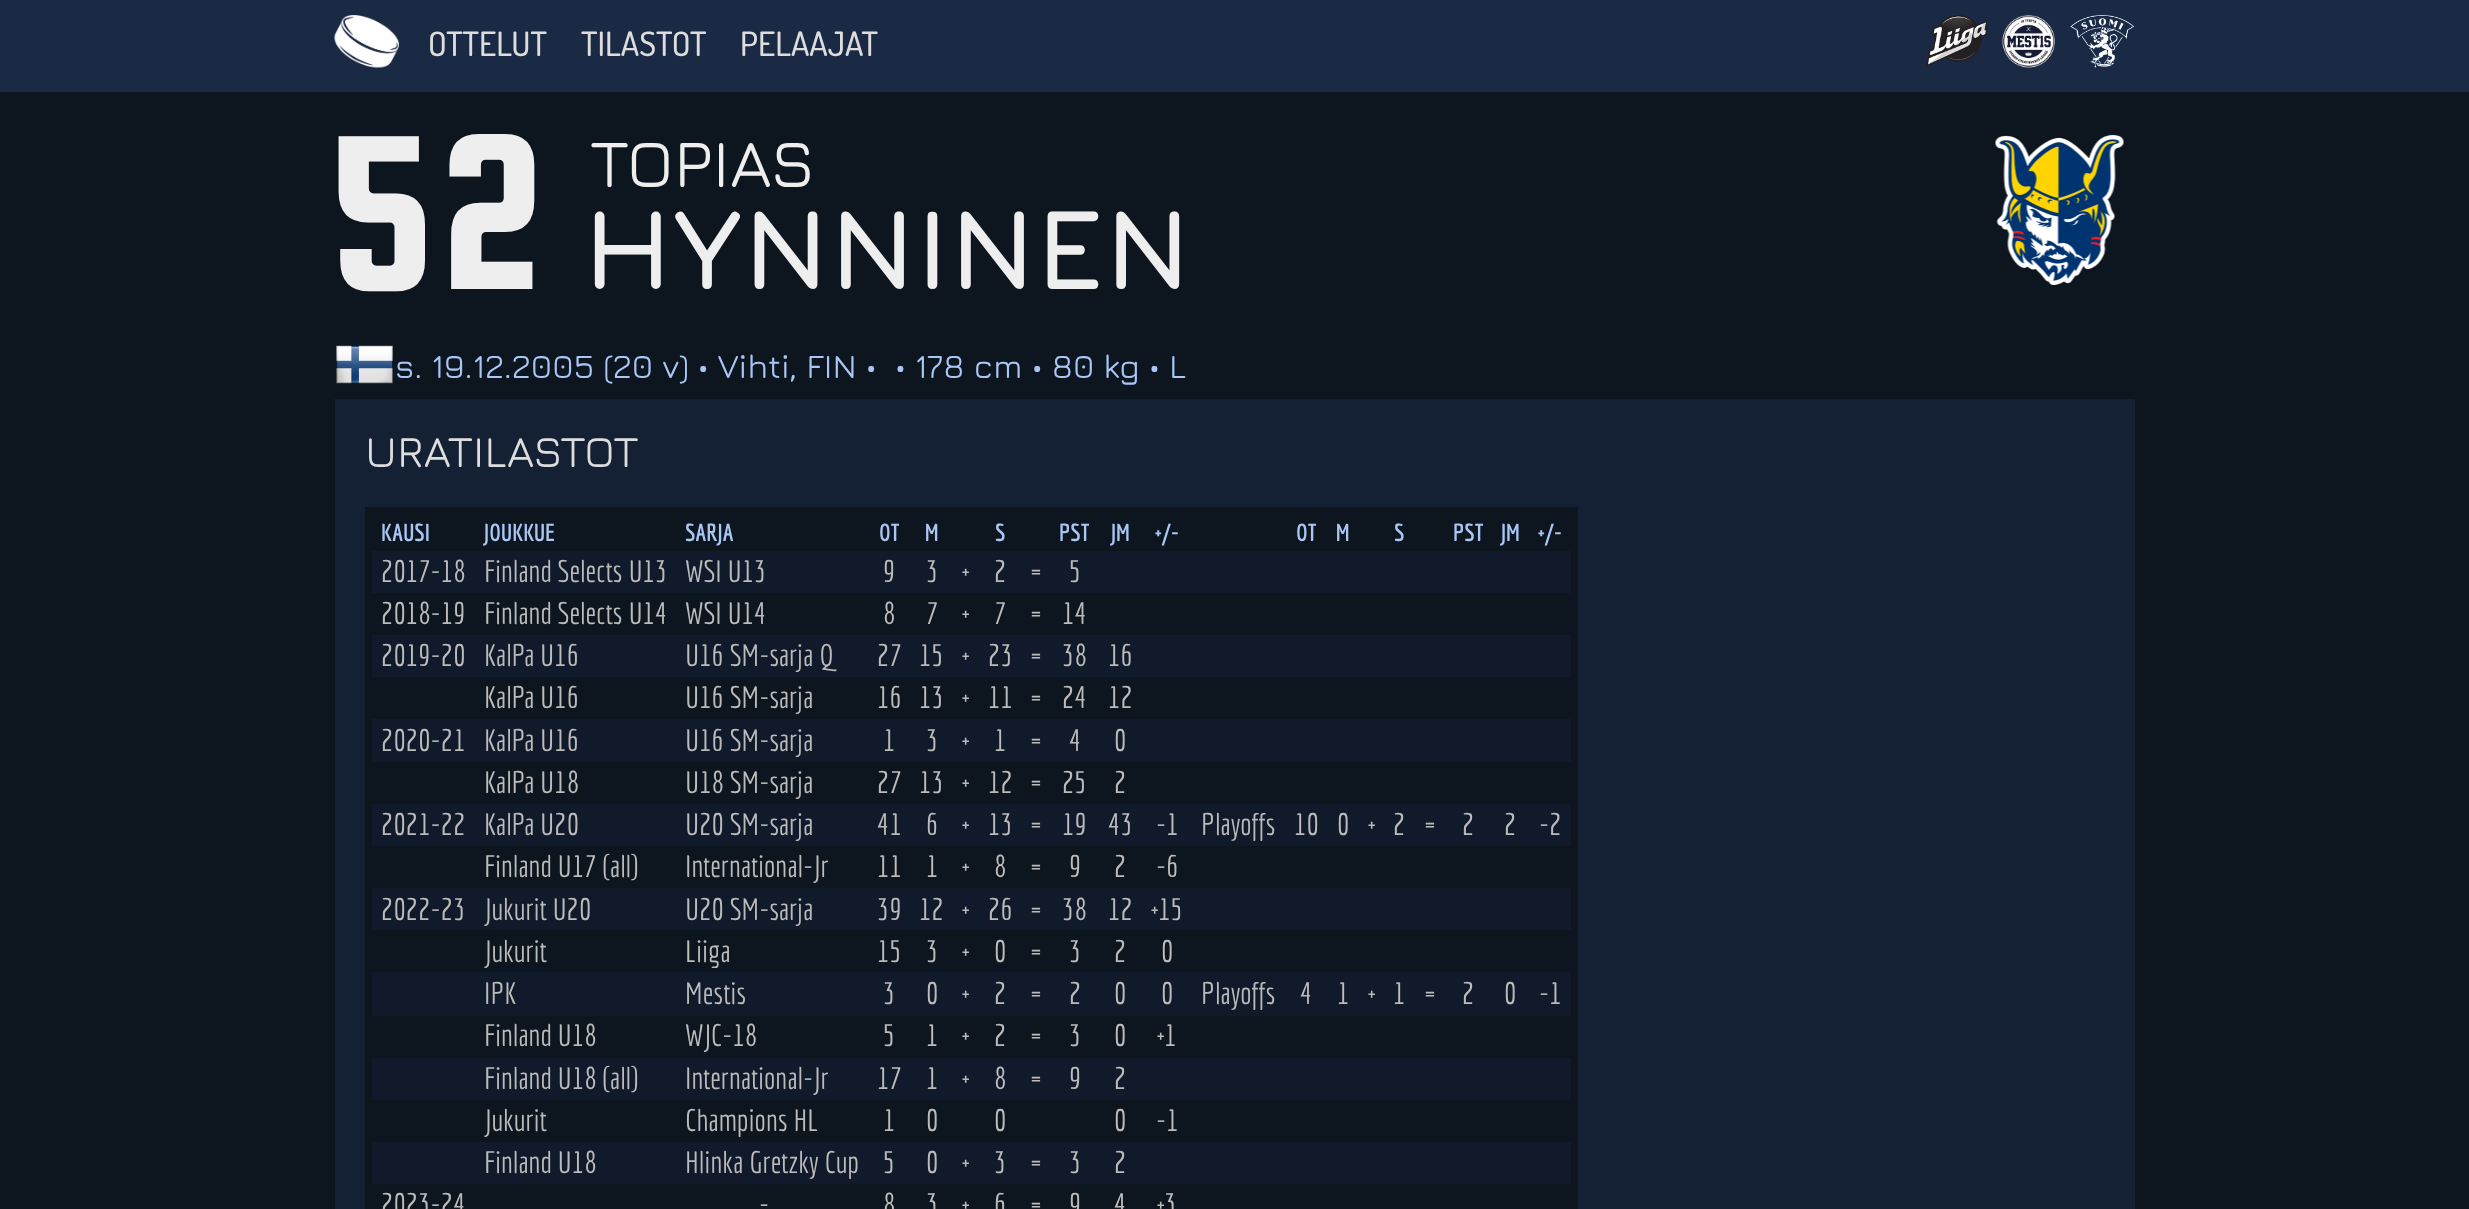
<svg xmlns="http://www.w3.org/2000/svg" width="2469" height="1209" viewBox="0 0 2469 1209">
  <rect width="100%" height="100%" fill="#0d151f"/>
  <rect x="0" y="0" width="2469" height="92" fill="#1b2a44"/>
  <image x="334" y="15" width="65" height="53" href="img1.png"/>
  <text x="428" y="56" font-family="Dosis" font-size="33.6" font-weight="500" fill="#dddddd">OTTELUT</text>
  <text x="581" y="56" font-family="Dosis" font-size="33.6" font-weight="500" fill="#dddddd">TILASTOT</text>
  <text x="740" y="56" font-family="Dosis" font-size="33.6" font-weight="500" fill="#dddddd">PELAAJAT</text>
  <image x="1926" y="15" width="62" height="52" href="img2.png"/>
  <image x="2002" y="15" width="53" height="53" href="img3.png"/>
  <image x="2070" y="15" width="65" height="53" href="img4.png"/>
  <rect x="335" y="399" width="1800" height="810" fill="#142033"/>
  <text x="328" y="289" font-family="Squada One" font-size="236" fill="#eeeeee">52</text>
  <text x="590" y="187" font-family="Jura" font-size="67" font-weight="500" fill="#eeeeee">TOPIAS</text>
  <text x="583" y="289" font-family="Jura" font-size="114.25" font-weight="bold" fill="#eeeeee">HYNNINEN</text>
  <image x="1995" y="135" width="129" height="150" href="img5.png"/>
  <image x="336" y="345" width="57" height="39" href="img6.png"/>
  <text x="395" y="378" font-family="Jura" font-size="33.6" font-weight="500" fill="#aac6f5">s. 19.12.2005 (20 v) • Vihti, FIN •</text>
  <text x="895" y="378" font-family="Jura" font-size="33.6" font-weight="500" fill="#aac6f5">• 178 cm • 80 kg • L</text>
  <text x="365" y="467" font-family="Jura" font-size="43.75" font-weight="500" fill="#dddddd">URATILASTOT</text>
  <rect x="369" y="511" width="1205" height="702" fill="none" stroke="#0d151f" stroke-width="8"/>
  <rect x="373" y="515" width="1197" height="36" fill="#0d151f"/>
  <text x="381" y="541" font-family="Economica" font-size="24" font-weight="bold" fill="#aac6f5">KAUSI</text>
  <text x="484" y="541" font-family="Economica" font-size="24" font-weight="bold" fill="#aac6f5">JOUKKUE</text>
  <text x="685" y="541" font-family="Economica" font-size="24" font-weight="bold" fill="#aac6f5">SARJA</text>
  <text x="879" y="541" font-family="Economica" font-size="24" font-weight="bold" fill="#aac6f5">OT</text>
  <text x="925" y="541" font-family="Economica" font-size="24" font-weight="bold" fill="#aac6f5">M</text>
  <text x="995" y="541" font-family="Economica" font-size="24" font-weight="bold" fill="#aac6f5">S</text>
  <text x="1059" y="541" font-family="Economica" font-size="24" font-weight="bold" fill="#aac6f5">PST</text>
  <text x="1111" y="541" font-family="Economica" font-size="24" font-weight="bold" fill="#aac6f5">JM</text>
  <text x="1155" y="541" font-family="Economica" font-size="24" font-weight="bold" fill="#aac6f5">+/-</text>
  <text x="1296" y="541" font-family="Economica" font-size="24" font-weight="bold" fill="#aac6f5">OT</text>
  <text x="1336" y="541" font-family="Economica" font-size="24" font-weight="bold" fill="#aac6f5">M</text>
  <text x="1394" y="541" font-family="Economica" font-size="24" font-weight="bold" fill="#aac6f5">S</text>
  <text x="1453" y="541" font-family="Economica" font-size="24" font-weight="bold" fill="#aac6f5">PST</text>
  <text x="1501" y="541" font-family="Economica" font-size="24" font-weight="bold" fill="#aac6f5">JM</text>
  <text x="1538" y="541" font-family="Economica" font-size="24" font-weight="bold" fill="#aac6f5">+/-</text>
  <rect x="372" y="551" width="1199" height="42" fill="#101a2a"/>
  <text x="381" y="582" font-family="Economica" font-size="30.25" fill="#bbbbbb">2017-18</text>
  <text x="484" y="582" font-family="Economica" font-size="30.25" fill="#bbbbbb">Finland Selects U13</text>
  <text x="685" y="582" font-family="Economica" font-size="30.25" fill="#bbbbbb">WSI U13</text>
  <text x="883" y="582" font-family="Economica" font-size="30.25" fill="#bbbbbb">9</text>
  <text x="926" y="582" font-family="Economica" font-size="30.25" fill="#bbbbbb">3</text>
  <text x="962" y="582" font-family="Economica" font-size="30.25" fill="#bbbbbb">+</text>
  <text x="994" y="582" font-family="Economica" font-size="30.25" fill="#bbbbbb">2</text>
  <text x="1030" y="582" font-family="Economica" font-size="30.25" fill="#bbbbbb">=</text>
  <text x="1069" y="582" font-family="Economica" font-size="30.25" fill="#bbbbbb">5</text>
  <rect x="373" y="593" width="1197" height="42" fill="#0d151f"/>
  <text x="381" y="624" font-family="Economica" font-size="30.25" fill="#bbbbbb">2018-19</text>
  <text x="484" y="624" font-family="Economica" font-size="30.25" fill="#bbbbbb">Finland Selects U14</text>
  <text x="685" y="624" font-family="Economica" font-size="30.25" fill="#bbbbbb">WSI U14</text>
  <text x="883" y="624" font-family="Economica" font-size="30.25" fill="#bbbbbb">8</text>
  <text x="926" y="624" font-family="Economica" font-size="30.25" fill="#bbbbbb">7</text>
  <text x="962" y="624" font-family="Economica" font-size="30.25" fill="#bbbbbb">+</text>
  <text x="994" y="624" font-family="Economica" font-size="30.25" fill="#bbbbbb">7</text>
  <text x="1030" y="624" font-family="Economica" font-size="30.25" fill="#bbbbbb">=</text>
  <text x="1062" y="624" font-family="Economica" font-size="30.25" fill="#bbbbbb">14</text>
  <rect x="372" y="635" width="1199" height="42" fill="#101a2a"/>
  <text x="381" y="666" font-family="Economica" font-size="30.25" fill="#bbbbbb">2019-20</text>
  <text x="484" y="666" font-family="Economica" font-size="30.25" fill="#bbbbbb">KalPa U16</text>
  <text x="685" y="666" font-family="Economica" font-size="30.25" fill="#bbbbbb">U16 SM-sarja Q</text>
  <text x="877" y="666" font-family="Economica" font-size="30.25" fill="#bbbbbb">27</text>
  <text x="919" y="666" font-family="Economica" font-size="30.25" fill="#bbbbbb">15</text>
  <text x="962" y="666" font-family="Economica" font-size="30.25" fill="#bbbbbb">+</text>
  <text x="988" y="666" font-family="Economica" font-size="30.25" fill="#bbbbbb">23</text>
  <text x="1030" y="666" font-family="Economica" font-size="30.25" fill="#bbbbbb">=</text>
  <text x="1062" y="666" font-family="Economica" font-size="30.25" fill="#bbbbbb">38</text>
  <text x="1108" y="666" font-family="Economica" font-size="30.25" fill="#bbbbbb">16</text>
  <rect x="373" y="677" width="1197" height="42" fill="#0d151f"/>
  <text x="484" y="708" font-family="Economica" font-size="30.25" fill="#bbbbbb">KalPa U16</text>
  <text x="685" y="708" font-family="Economica" font-size="30.25" fill="#bbbbbb">U16 SM-sarja</text>
  <text x="877" y="708" font-family="Economica" font-size="30.25" fill="#bbbbbb">16</text>
  <text x="919" y="708" font-family="Economica" font-size="30.25" fill="#bbbbbb">13</text>
  <text x="962" y="708" font-family="Economica" font-size="30.25" fill="#bbbbbb">+</text>
  <text x="988" y="708" font-family="Economica" font-size="30.25" fill="#bbbbbb">11</text>
  <text x="1030" y="708" font-family="Economica" font-size="30.25" fill="#bbbbbb">=</text>
  <text x="1062" y="708" font-family="Economica" font-size="30.25" fill="#bbbbbb">24</text>
  <text x="1108" y="708" font-family="Economica" font-size="30.25" fill="#bbbbbb">12</text>
  <rect x="372" y="719" width="1199" height="43" fill="#101a2a"/>
  <text x="381" y="751" font-family="Economica" font-size="30.25" fill="#bbbbbb">2020-21</text>
  <text x="484" y="751" font-family="Economica" font-size="30.25" fill="#bbbbbb">KalPa U16</text>
  <text x="685" y="751" font-family="Economica" font-size="30.25" fill="#bbbbbb">U16 SM-sarja</text>
  <text x="883" y="751" font-family="Economica" font-size="30.25" fill="#bbbbbb">1</text>
  <text x="926" y="751" font-family="Economica" font-size="30.25" fill="#bbbbbb">3</text>
  <text x="962" y="751" font-family="Economica" font-size="30.25" fill="#bbbbbb">+</text>
  <text x="994" y="751" font-family="Economica" font-size="30.25" fill="#bbbbbb">1</text>
  <text x="1030" y="751" font-family="Economica" font-size="30.25" fill="#bbbbbb">=</text>
  <text x="1069" y="751" font-family="Economica" font-size="30.25" fill="#bbbbbb">4</text>
  <text x="1114" y="751" font-family="Economica" font-size="30.25" fill="#bbbbbb">0</text>
  <rect x="373" y="762" width="1197" height="42" fill="#0d151f"/>
  <text x="484" y="793" font-family="Economica" font-size="30.25" fill="#bbbbbb">KalPa U18</text>
  <text x="685" y="793" font-family="Economica" font-size="30.25" fill="#bbbbbb">U18 SM-sarja</text>
  <text x="877" y="793" font-family="Economica" font-size="30.25" fill="#bbbbbb">27</text>
  <text x="919" y="793" font-family="Economica" font-size="30.25" fill="#bbbbbb">13</text>
  <text x="962" y="793" font-family="Economica" font-size="30.25" fill="#bbbbbb">+</text>
  <text x="988" y="793" font-family="Economica" font-size="30.25" fill="#bbbbbb">12</text>
  <text x="1030" y="793" font-family="Economica" font-size="30.25" fill="#bbbbbb">=</text>
  <text x="1062" y="793" font-family="Economica" font-size="30.25" fill="#bbbbbb">25</text>
  <text x="1114" y="793" font-family="Economica" font-size="30.25" fill="#bbbbbb">2</text>
  <rect x="372" y="804" width="1199" height="42" fill="#101a2a"/>
  <text x="381" y="835" font-family="Economica" font-size="30.25" fill="#bbbbbb">2021-22</text>
  <text x="484" y="835" font-family="Economica" font-size="30.25" fill="#bbbbbb">KalPa U20</text>
  <text x="685" y="835" font-family="Economica" font-size="30.25" fill="#bbbbbb">U20 SM-sarja</text>
  <text x="877" y="835" font-family="Economica" font-size="30.25" fill="#bbbbbb">41</text>
  <text x="926" y="835" font-family="Economica" font-size="30.25" fill="#bbbbbb">6</text>
  <text x="962" y="835" font-family="Economica" font-size="30.25" fill="#bbbbbb">+</text>
  <text x="988" y="835" font-family="Economica" font-size="30.25" fill="#bbbbbb">13</text>
  <text x="1030" y="835" font-family="Economica" font-size="30.25" fill="#bbbbbb">=</text>
  <text x="1062" y="835" font-family="Economica" font-size="30.25" fill="#bbbbbb">19</text>
  <text x="1108" y="835" font-family="Economica" font-size="30.25" fill="#bbbbbb">43</text>
  <text x="1156" y="835" font-family="Economica" font-size="30.25" fill="#bbbbbb">-1</text>
  <text x="1201" y="835" font-family="Economica" font-size="30.25" fill="#bbbbbb">Playoffs</text>
  <text x="1294" y="835" font-family="Economica" font-size="30.25" fill="#bbbbbb">10</text>
  <text x="1337" y="835" font-family="Economica" font-size="30.25" fill="#bbbbbb">0</text>
  <text x="1368" y="835" font-family="Economica" font-size="30.25" fill="#bbbbbb">+</text>
  <text x="1393" y="835" font-family="Economica" font-size="30.25" fill="#bbbbbb">2</text>
  <text x="1424" y="835" font-family="Economica" font-size="30.25" fill="#bbbbbb">=</text>
  <text x="1462" y="835" font-family="Economica" font-size="30.25" fill="#bbbbbb">2</text>
  <text x="1504" y="835" font-family="Economica" font-size="30.25" fill="#bbbbbb">2</text>
  <text x="1539" y="835" font-family="Economica" font-size="30.25" fill="#bbbbbb">-2</text>
  <rect x="373" y="846" width="1197" height="42" fill="#0d151f"/>
  <text x="484" y="877" font-family="Economica" font-size="30.25" fill="#bbbbbb">Finland U17 (all)</text>
  <text x="685" y="877" font-family="Economica" font-size="30.25" fill="#bbbbbb">International-Jr</text>
  <text x="877" y="877" font-family="Economica" font-size="30.25" fill="#bbbbbb">11</text>
  <text x="926" y="877" font-family="Economica" font-size="30.25" fill="#bbbbbb">1</text>
  <text x="962" y="877" font-family="Economica" font-size="30.25" fill="#bbbbbb">+</text>
  <text x="994" y="877" font-family="Economica" font-size="30.25" fill="#bbbbbb">8</text>
  <text x="1030" y="877" font-family="Economica" font-size="30.25" fill="#bbbbbb">=</text>
  <text x="1069" y="877" font-family="Economica" font-size="30.25" fill="#bbbbbb">9</text>
  <text x="1114" y="877" font-family="Economica" font-size="30.25" fill="#bbbbbb">2</text>
  <text x="1156" y="877" font-family="Economica" font-size="30.25" fill="#bbbbbb">-6</text>
  <rect x="372" y="888" width="1199" height="42" fill="#101a2a"/>
  <text x="381" y="920" font-family="Economica" font-size="30.25" fill="#bbbbbb">2022-23</text>
  <text x="484" y="920" font-family="Economica" font-size="30.25" fill="#bbbbbb">Jukurit U20</text>
  <text x="685" y="920" font-family="Economica" font-size="30.25" fill="#bbbbbb">U20 SM-sarja</text>
  <text x="877" y="920" font-family="Economica" font-size="30.25" fill="#bbbbbb">39</text>
  <text x="919" y="920" font-family="Economica" font-size="30.25" fill="#bbbbbb">12</text>
  <text x="962" y="920" font-family="Economica" font-size="30.25" fill="#bbbbbb">+</text>
  <text x="988" y="920" font-family="Economica" font-size="30.25" fill="#bbbbbb">26</text>
  <text x="1030" y="920" font-family="Economica" font-size="30.25" fill="#bbbbbb">=</text>
  <text x="1062" y="920" font-family="Economica" font-size="30.25" fill="#bbbbbb">38</text>
  <text x="1108" y="920" font-family="Economica" font-size="30.25" fill="#bbbbbb">12</text>
  <text x="1151" y="920" font-family="Economica" font-size="30.25" fill="#bbbbbb">+15</text>
  <rect x="373" y="930" width="1197" height="42" fill="#0d151f"/>
  <text x="484" y="962" font-family="Economica" font-size="30.25" fill="#bbbbbb">Jukurit</text>
  <text x="685" y="962" font-family="Economica" font-size="30.25" fill="#bbbbbb">Liiga</text>
  <text x="877" y="962" font-family="Economica" font-size="30.25" fill="#bbbbbb">15</text>
  <text x="926" y="962" font-family="Economica" font-size="30.25" fill="#bbbbbb">3</text>
  <text x="962" y="962" font-family="Economica" font-size="30.25" fill="#bbbbbb">+</text>
  <text x="994" y="962" font-family="Economica" font-size="30.25" fill="#bbbbbb">0</text>
  <text x="1030" y="962" font-family="Economica" font-size="30.25" fill="#bbbbbb">=</text>
  <text x="1069" y="962" font-family="Economica" font-size="30.25" fill="#bbbbbb">3</text>
  <text x="1114" y="962" font-family="Economica" font-size="30.25" fill="#bbbbbb">2</text>
  <text x="1161" y="962" font-family="Economica" font-size="30.25" fill="#bbbbbb">0</text>
  <rect x="372" y="972" width="1199" height="44" fill="#101a2a"/>
  <text x="484" y="1004" font-family="Economica" font-size="30.25" fill="#bbbbbb">IPK</text>
  <text x="685" y="1004" font-family="Economica" font-size="30.25" fill="#bbbbbb">Mestis</text>
  <text x="883" y="1004" font-family="Economica" font-size="30.25" fill="#bbbbbb">3</text>
  <text x="926" y="1004" font-family="Economica" font-size="30.25" fill="#bbbbbb">0</text>
  <text x="962" y="1004" font-family="Economica" font-size="30.25" fill="#bbbbbb">+</text>
  <text x="994" y="1004" font-family="Economica" font-size="30.25" fill="#bbbbbb">2</text>
  <text x="1030" y="1004" font-family="Economica" font-size="30.25" fill="#bbbbbb">=</text>
  <text x="1069" y="1004" font-family="Economica" font-size="30.25" fill="#bbbbbb">2</text>
  <text x="1114" y="1004" font-family="Economica" font-size="30.25" fill="#bbbbbb">0</text>
  <text x="1161" y="1004" font-family="Economica" font-size="30.25" fill="#bbbbbb">0</text>
  <text x="1201" y="1004" font-family="Economica" font-size="30.25" fill="#bbbbbb">Playoffs</text>
  <text x="1300" y="1004" font-family="Economica" font-size="30.25" fill="#bbbbbb">4</text>
  <text x="1337" y="1004" font-family="Economica" font-size="30.25" fill="#bbbbbb">1</text>
  <text x="1368" y="1004" font-family="Economica" font-size="30.25" fill="#bbbbbb">+</text>
  <text x="1393" y="1004" font-family="Economica" font-size="30.25" fill="#bbbbbb">1</text>
  <text x="1424" y="1004" font-family="Economica" font-size="30.25" fill="#bbbbbb">=</text>
  <text x="1462" y="1004" font-family="Economica" font-size="30.25" fill="#bbbbbb">2</text>
  <text x="1504" y="1004" font-family="Economica" font-size="30.25" fill="#bbbbbb">0</text>
  <text x="1539" y="1004" font-family="Economica" font-size="30.25" fill="#bbbbbb">-1</text>
  <rect x="373" y="1016" width="1197" height="42" fill="#0d151f"/>
  <text x="484" y="1046" font-family="Economica" font-size="30.25" fill="#bbbbbb">Finland U18</text>
  <text x="685" y="1046" font-family="Economica" font-size="30.25" fill="#bbbbbb">WJC-18</text>
  <text x="883" y="1046" font-family="Economica" font-size="30.25" fill="#bbbbbb">5</text>
  <text x="926" y="1046" font-family="Economica" font-size="30.25" fill="#bbbbbb">1</text>
  <text x="962" y="1046" font-family="Economica" font-size="30.25" fill="#bbbbbb">+</text>
  <text x="994" y="1046" font-family="Economica" font-size="30.25" fill="#bbbbbb">2</text>
  <text x="1030" y="1046" font-family="Economica" font-size="30.25" fill="#bbbbbb">=</text>
  <text x="1069" y="1046" font-family="Economica" font-size="30.25" fill="#bbbbbb">3</text>
  <text x="1114" y="1046" font-family="Economica" font-size="30.25" fill="#bbbbbb">0</text>
  <text x="1157" y="1046" font-family="Economica" font-size="30.25" fill="#bbbbbb">+1</text>
  <rect x="372" y="1058" width="1199" height="42" fill="#101a2a"/>
  <text x="484" y="1089" font-family="Economica" font-size="30.25" fill="#bbbbbb">Finland U18 (all)</text>
  <text x="685" y="1089" font-family="Economica" font-size="30.25" fill="#bbbbbb">International-Jr</text>
  <text x="877" y="1089" font-family="Economica" font-size="30.25" fill="#bbbbbb">17</text>
  <text x="926" y="1089" font-family="Economica" font-size="30.25" fill="#bbbbbb">1</text>
  <text x="962" y="1089" font-family="Economica" font-size="30.25" fill="#bbbbbb">+</text>
  <text x="994" y="1089" font-family="Economica" font-size="30.25" fill="#bbbbbb">8</text>
  <text x="1030" y="1089" font-family="Economica" font-size="30.25" fill="#bbbbbb">=</text>
  <text x="1069" y="1089" font-family="Economica" font-size="30.25" fill="#bbbbbb">9</text>
  <text x="1114" y="1089" font-family="Economica" font-size="30.25" fill="#bbbbbb">2</text>
  <rect x="373" y="1100" width="1197" height="42" fill="#0d151f"/>
  <text x="484" y="1131" font-family="Economica" font-size="30.25" fill="#bbbbbb">Jukurit</text>
  <text x="685" y="1131" font-family="Economica" font-size="30.25" fill="#bbbbbb">Champions HL</text>
  <text x="883" y="1131" font-family="Economica" font-size="30.25" fill="#bbbbbb">1</text>
  <text x="926" y="1131" font-family="Economica" font-size="30.25" fill="#bbbbbb">0</text>
  <text x="994" y="1131" font-family="Economica" font-size="30.25" fill="#bbbbbb">0</text>
  <text x="1114" y="1131" font-family="Economica" font-size="30.25" fill="#bbbbbb">0</text>
  <text x="1156" y="1131" font-family="Economica" font-size="30.25" fill="#bbbbbb">-1</text>
  <rect x="372" y="1142" width="1199" height="42" fill="#101a2a"/>
  <text x="484" y="1173" font-family="Economica" font-size="30.25" fill="#bbbbbb">Finland U18</text>
  <text x="685" y="1173" font-family="Economica" font-size="30.25" fill="#bbbbbb">Hlinka Gretzky Cup</text>
  <text x="883" y="1173" font-family="Economica" font-size="30.25" fill="#bbbbbb">5</text>
  <text x="926" y="1173" font-family="Economica" font-size="30.25" fill="#bbbbbb">0</text>
  <text x="962" y="1173" font-family="Economica" font-size="30.25" fill="#bbbbbb">+</text>
  <text x="994" y="1173" font-family="Economica" font-size="30.25" fill="#bbbbbb">3</text>
  <text x="1030" y="1173" font-family="Economica" font-size="30.25" fill="#bbbbbb">=</text>
  <text x="1069" y="1173" font-family="Economica" font-size="30.25" fill="#bbbbbb">3</text>
  <text x="1114" y="1173" font-family="Economica" font-size="30.25" fill="#bbbbbb">2</text>
  <rect x="373" y="1184" width="1197" height="25" fill="#0d151f"/>
  <text x="381" y="1215" font-family="Economica" font-size="30.25" fill="#bbbbbb">2023-24</text>
  <text x="759" y="1215" font-family="Economica" font-size="30.25" fill="#bbbbbb">-</text>
  <text x="883" y="1215" font-family="Economica" font-size="30.25" fill="#bbbbbb">8</text>
  <text x="926" y="1215" font-family="Economica" font-size="30.25" fill="#bbbbbb">3</text>
  <text x="962" y="1215" font-family="Economica" font-size="30.25" fill="#bbbbbb">+</text>
  <text x="994" y="1215" font-family="Economica" font-size="30.25" fill="#bbbbbb">6</text>
  <text x="1030" y="1215" font-family="Economica" font-size="30.25" fill="#bbbbbb">=</text>
  <text x="1069" y="1215" font-family="Economica" font-size="30.25" fill="#bbbbbb">9</text>
  <text x="1114" y="1215" font-family="Economica" font-size="30.25" fill="#bbbbbb">4</text>
  <text x="1157" y="1215" font-family="Economica" font-size="30.25" fill="#bbbbbb">+3</text>
</svg>
